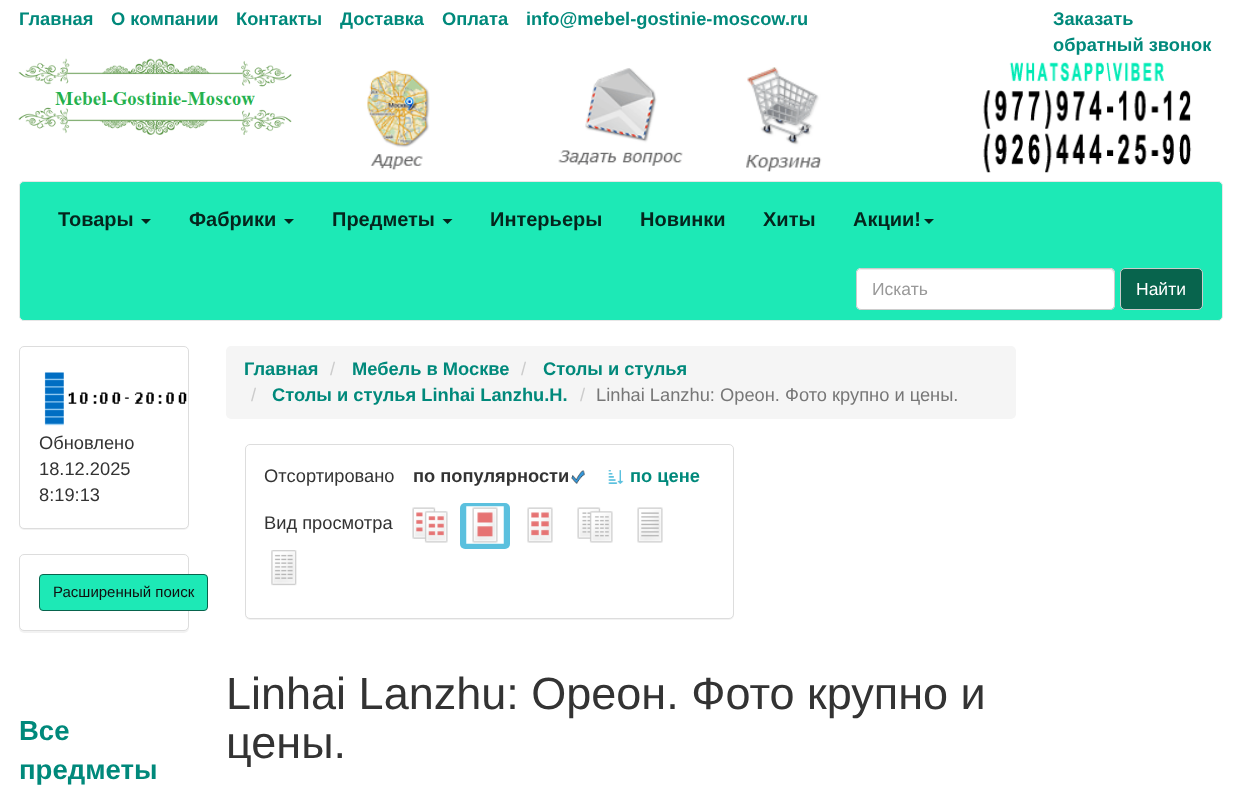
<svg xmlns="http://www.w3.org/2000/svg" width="1241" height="790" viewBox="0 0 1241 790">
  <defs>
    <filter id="blur1" x="-50%" y="-200%" width="200%" height="500%"><feGaussianBlur stdDeviation="0.5"/></filter>
  </defs>
  <rect width="100%" height="100%" fill="#ffffff"/>
  <text x="19" y="25" font-family="Liberation Sans" font-size="18.3" font-weight="bold" fill="#00897b">Главная</text>
  <text x="111" y="25" font-family="Liberation Sans" font-size="18.3" font-weight="bold" fill="#00897b">О компании</text>
  <text x="236" y="25" font-family="Liberation Sans" font-size="18.3" font-weight="bold" fill="#00897b">Контакты</text>
  <text x="340" y="25" font-family="Liberation Sans" font-size="18.3" font-weight="bold" fill="#00897b">Доставка</text>
  <text x="442" y="25" font-family="Liberation Sans" font-size="18.3" font-weight="bold" fill="#00897b">Оплата</text>
  <text x="526" y="25" font-family="Liberation Sans" font-size="18.3" font-weight="bold" fill="#00897b">info@mebel-gostinie-moscow.ru</text>
  <text x="1053" y="25" font-family="Liberation Sans" font-size="18.3" font-weight="bold" fill="#00897b">Заказать</text>
  <text x="1053" y="51" font-family="Liberation Sans" font-size="18.3" font-weight="bold" fill="#00897b">обратный звонок</text>
  <image x="18" y="58" width="274" height="77" href="img1.png"/>
  <image x="367" y="70" width="63" height="100" href="img2.png"/>
  <image x="558" y="68" width="125" height="98" href="img3.png"/>
  <image x="746" y="67" width="76" height="105" href="img4.png"/>
  <image x="983" y="62" width="209" height="111" href="img5.png"/>
  <rect x="19.5" y="181.5" width="1203" height="139" rx="4.5" fill="#1de9b6" stroke="#e7e7e7"/>
  <text x="58" y="226" font-family="Liberation Sans" font-size="20" font-weight="bold" fill="#05251d">Товары</text>
  <path d="M141 219H151L146 224Z" fill="#05251d"/>
  <text x="189" y="226" font-family="Liberation Sans" font-size="20" font-weight="bold" fill="#05251d">Фабрики</text>
  <path d="M284 219H294L289 224Z" fill="#05251d"/>
  <text x="332" y="226" font-family="Liberation Sans" font-size="20" font-weight="bold" fill="#05251d">Предметы</text>
  <path d="M442.5 219H452.5L447.5 224Z" fill="#05251d"/>
  <text x="490" y="226" font-family="Liberation Sans" font-size="20" font-weight="bold" fill="#05251d">Интерьеры</text>
  <text x="640" y="226" font-family="Liberation Sans" font-size="20" font-weight="bold" fill="#05251d">Новинки</text>
  <text x="763" y="226" font-family="Liberation Sans" font-size="20" font-weight="bold" fill="#05251d">Хиты</text>
  <text x="853" y="226" font-family="Liberation Sans" font-size="20" font-weight="bold" fill="#05251d">Акции!</text>
  <path d="M924 219H934L929 224Z" fill="#05251d"/>
  <rect x="856" y="268" width="259" height="42" rx="5" fill="#ffffff"/>
  <path d="M861 270H1111L1113 272L1114 274V273C1114 271 1112 269 1110 269H862C860 269 858 271 858 273V274C858 272 859 270 861 270Z" fill="#ececec"/>
  <rect x="856.5" y="268.5" width="258" height="41" rx="4.5" fill="none" stroke="#cccccc"/>
  <text x="872" y="295" font-family="Liberation Sans" font-size="17.5" fill="#999999">Искать</text>
  <rect x="1120.5" y="268.5" width="82" height="41" rx="4.5" fill="#08644d" stroke="#cccccc"/>
  <text x="1136" y="295" font-family="Liberation Sans" font-size="17.5" fill="#ffffff">Найти</text>
  <rect x="19" y="348" width="170" height="182" rx="5" fill="#000000" fill-opacity="0.05" filter="url(#blur1)"/>
  <rect x="19.5" y="346.5" width="169" height="182" rx="4.5" fill="#ffffff" stroke="#dddddd"/>
  <image x="44" y="372" width="143" height="54" href="img6.png"/>
  <text x="39" y="449" font-family="Liberation Sans" font-size="18.3" fill="#333333">Обновлено</text>
  <text x="39" y="475" font-family="Liberation Sans" font-size="18.3" fill="#333333">18.12.2025</text>
  <text x="39" y="501" font-family="Liberation Sans" font-size="18.3" fill="#333333">8:19:13</text>
  <rect x="19" y="555" width="170" height="78" rx="5" fill="#000000" fill-opacity="0.05" filter="url(#blur1)"/>
  <rect x="19.5" y="554.5" width="169" height="76" rx="4.5" fill="#ffffff" stroke="#dddddd"/>
  <rect x="39.5" y="574.5" width="168" height="36" rx="3.5" fill="#1de9b6" stroke="#08644d"/>
  <text x="53" y="597" font-family="Liberation Sans" font-size="15" fill="#100f0f">Расширенный поиск</text>
  <text x="19" y="740" font-family="Liberation Sans" font-size="27.5" font-weight="bold" fill="#00897b">Все</text>
  <text x="19" y="779" font-family="Liberation Sans" font-size="27.5" font-weight="bold" fill="#00897b">предметы</text>
  <rect x="226" y="346" width="790" height="73" rx="5" fill="#f5f5f5"/>
  <text x="244" y="375" font-family="Liberation Sans" font-size="18.3" font-weight="bold" fill="#00897b">Главная</text>
  <text x="330" y="375" font-family="Liberation Sans" font-size="18.3" fill="#cccccc">/</text>
  <text x="352" y="375" font-family="Liberation Sans" font-size="18.3" font-weight="bold" fill="#00897b">Мебель в Москве</text>
  <text x="521" y="375" font-family="Liberation Sans" font-size="18.3" fill="#cccccc">/</text>
  <text x="543" y="375" font-family="Liberation Sans" font-size="18.3" font-weight="bold" fill="#00897b">Столы и стулья</text>
  <text x="251" y="401" font-family="Liberation Sans" font-size="18.3" fill="#cccccc">/</text>
  <text x="272" y="401" font-family="Liberation Sans" font-size="18.3" font-weight="bold" fill="#00897b">Столы и стулья Linhai Lanzhu.H.</text>
  <text x="580" y="401" font-family="Liberation Sans" font-size="18.3" fill="#cccccc">/</text>
  <text x="596" y="401" font-family="Liberation Sans" font-size="18.3" fill="#777777">Linhai Lanzhu: Ореон. Фото крупно и цены.</text>
  <rect x="245" y="445" width="489" height="175" rx="5" fill="#000000" fill-opacity="0.05" filter="url(#blur1)"/>
  <rect x="245.5" y="444.5" width="488" height="174" rx="4.5" fill="#ffffff" stroke="#dddddd"/>
  <text x="264" y="482" font-family="Liberation Sans" font-size="18.3" fill="#333333">Отсортировано</text>
  <text x="413" y="482" font-family="Liberation Sans" font-size="18.3" font-weight="bold" fill="#333333">по популярности</text>
  <image x="571" y="470" width="14" height="14" href="img7.png"/>
  <image x="608" y="470" width="16" height="14" href="img8.png"/>
  <text x="630" y="482" font-family="Liberation Sans" font-size="18.3" font-weight="bold" fill="#00897b">по цене</text>
  <text x="264" y="529" font-family="Liberation Sans" font-size="18.3" fill="#333333">Вид просмотра</text>
  <image x="412" y="507" width="36" height="36" href="img9.png"/>
  <rect x="460" y="503" width="50" height="46" rx="5" fill="#5bc0de"/>
  <image x="466" y="506" width="38" height="38" href="img10.png"/>
  <image x="527" y="507" width="26" height="36" href="img11.png"/>
  <image x="577" y="507" width="36" height="36" href="img12.png"/>
  <image x="637" y="507" width="26" height="36" href="img13.png"/>
  <image x="271" y="550" width="26" height="36" href="img14.png"/>
  <text x="226" y="709" font-family="Liberation Sans" font-size="45" fill="#333333">Linhai Lanzhu: Ореон. Фото крупно и</text>
  <text x="226" y="758" font-family="Liberation Sans" font-size="45" fill="#333333">цены.</text>
</svg>
